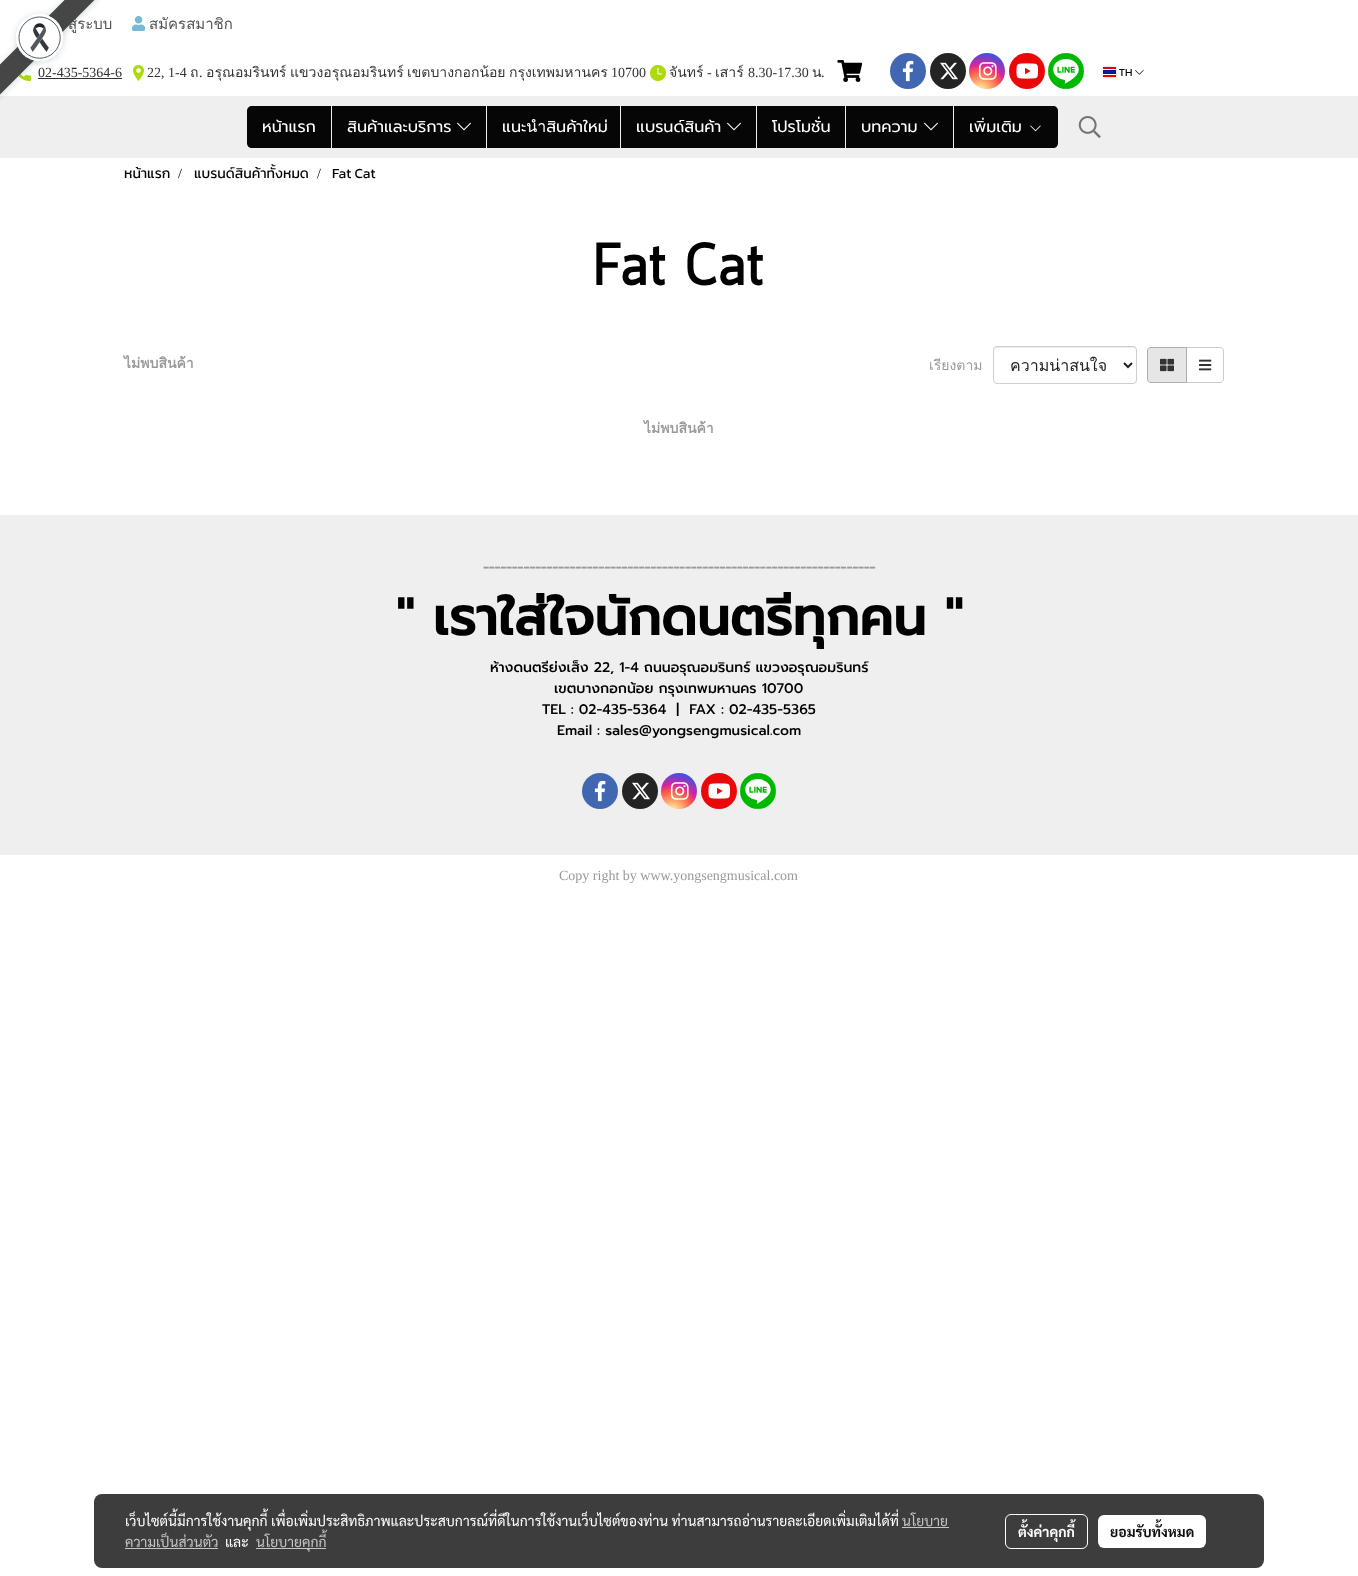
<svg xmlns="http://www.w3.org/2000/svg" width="1358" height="1576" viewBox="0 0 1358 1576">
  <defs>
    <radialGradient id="g1" gradientUnits="userSpaceOnUse" cx="980" cy="92" r="46"><stop offset="0" stop-color="#fdf497"/><stop offset="0.05" stop-color="#fdf497"/><stop offset="0.45" stop-color="#fd5949"/><stop offset="0.6" stop-color="#d6249f"/><stop offset="0.9" stop-color="#285aeb"/></radialGradient>
    <filter id="blur1" x="-50%" y="-200%" width="200%" height="500%"><feGaussianBlur stdDeviation="1"/></filter>
    <radialGradient id="g2" gradientUnits="userSpaceOnUse" cx="672" cy="812" r="46"><stop offset="0" stop-color="#fdf497"/><stop offset="0.05" stop-color="#fdf497"/><stop offset="0.45" stop-color="#fd5949"/><stop offset="0.6" stop-color="#d6249f"/><stop offset="0.9" stop-color="#285aeb"/></radialGradient>
  </defs>
  <rect width="100%" height="100%" fill="#ffffff"/>
  <rect x="0" y="96" width="1358" height="62" fill="#efefef"/>
  <text x="68" y="29" font-family="Loma" font-size="15" fill="#535459">สู่ระบบ</text>
  <image x="18" y="73" width="13" height="8" href="img3.png"/>
  <text x="38" y="77" font-family="Liberation Serif" font-size="14" fill="#333333">02-435-5364-6</text>
  <rect x="38" y="78" width="84" height="1" fill="#333333"/>
  <image x="0" y="0" width="101" height="101" href="img1.png"/>
  <image x="132" y="16" width="14" height="15" href="img2.png"/>
  <text x="149" y="29" font-family="Loma" font-size="15" fill="#535459">สมัครสมาชิก</text>
  <image x="133" y="65" width="11" height="16" href="img4.png"/>
  <text x="147" y="77" font-family="Liberation Serif" font-size="14" fill="#333333">22, 1-4</text>
  <text x="190" y="77" font-family="Loma" font-size="14" fill="#333333">ถ</text>
  <text x="206" y="77" font-family="Loma" font-size="14" fill="#333333">อรุณอมรินทร์</text>
  <text x="290" y="77" font-family="Loma" font-size="14" fill="#333333">แขวงอรุณอมรินทร์</text>
  <text x="407" y="77" font-family="Loma" font-size="14" fill="#333333">เขตบางกอกน้อย</text>
  <text x="509" y="77" font-family="Loma" font-size="14" fill="#333333">กรุงเทพมหานคร</text>
  <text x="611" y="77" font-family="Liberation Serif" font-size="14" fill="#333333">10700</text>
  <image x="650" y="65" width="16" height="16" href="img5.png"/>
  <text x="669" y="77" font-family="Loma" font-size="14" fill="#333333">จันทร์</text>
  <text x="707" y="77" font-family="Liberation Serif" font-size="14" fill="#333333">-</text>
  <text x="715" y="77" font-family="Loma" font-size="14" fill="#333333">เสาร์</text>
  <text x="748" y="77" font-family="Liberation Serif" font-size="14" fill="#333333">8.30-17.30</text>
  <text x="812" y="77" font-family="Loma" font-size="14" fill="#333333">น</text>
  <text x="199" y="77" font-family="Liberation Serif" font-size="14" fill="#333333">.</text>
  <text x="821" y="77" font-family="Liberation Serif" font-size="14" fill="#333333">.</text>
  <image x="837" y="60" width="26" height="22" href="img6.png"/>
  <circle cx="908" cy="71" r="18" fill="#4267b2"/>
  <image x="902" y="60" width="12" height="22" href="img7.png"/>
  <circle cx="948" cy="71" r="18" fill="#242424"/>
  <image x="940" y="62" width="18" height="18" href="img8.png"/>
  <circle cx="987" cy="71" r="18" fill="url(#g1)"/>
  <image x="978" y="62" width="19" height="18" href="img9.png"/>
  <circle cx="1027" cy="71" r="18" fill="#eb0808"/>
  <image x="1016" y="63" width="23" height="16" href="img10.png"/>
  <circle cx="1066" cy="71" r="18" fill="#00b800"/>
  <image x="1048" y="53" width="36" height="36" href="img11.png"/>
  <rect x="1103" y="67" width="13" height="10" fill="#000000" fill-opacity="0.25" filter="url(#blur1)"/>
  <image x="1103" y="67" width="13" height="10" href="img12.png"/>
  <text x="1119" y="76" font-family="Montserrat" font-size="10" fill="#060606">TH</text>
  <image x="1135" y="70" width="9" height="5" href="img13.png"/>
  <path d="M252 106H331V148H252C249 148 247 146 247 143V111C247 108 249 106 252 106Z" fill="#060606"/>
  <text x="262" y="132" font-family="Prompt" font-size="16" fill="#ffffff">หน้าแรก</text>
  <rect x="332" y="106" width="154" height="42" fill="#060606"/>
  <text x="347" y="132" font-family="Prompt" font-size="16" fill="#ffffff">สินค้าและบริการ</text>
  <image x="457" y="122" width="14" height="9" href="img14.png"/>
  <rect x="487" y="106" width="133" height="42" fill="#060606"/>
  <text x="502" y="132" font-family="Prompt" font-size="16" fill="#ffffff">แนะนำสินค้าใหม่</text>
  <rect x="621" y="106" width="135" height="42" fill="#060606"/>
  <text x="636" y="132" font-family="Prompt" font-size="16" fill="#ffffff">แบรนด์สินค้า</text>
  <image x="727" y="122" width="14" height="9" href="img14.png"/>
  <rect x="757" y="106" width="88" height="42" fill="#060606"/>
  <text x="772" y="132" font-family="Prompt" font-size="16" fill="#ffffff">โปรโมชั่น</text>
  <rect x="846" y="106" width="107" height="42" fill="#060606"/>
  <text x="861" y="132" font-family="Prompt" font-size="16" fill="#ffffff">บทความ</text>
  <image x="924" y="122" width="14" height="9" href="img14.png"/>
  <path d="M954 106H1053C1056 106 1058 108 1058 111V143C1058 146 1056 148 1053 148H954Z" fill="#060606"/>
  <text x="969" y="132" font-family="Prompt" font-size="16" fill="#ffffff">เพิ่มเติม</text>
  <image x="1030" y="125" width="11" height="7" href="img15.png"/>
  <image x="1078" y="116" width="23" height="22" href="img16.png"/>
  <text x="124" y="178" font-family="Kanit" font-size="14" fill="#060606">หน้าแรก</text>
  <text x="178" y="178" font-family="Liberation Serif" font-size="14" fill="#060606">/</text>
  <text x="194" y="178" font-family="Kanit" font-size="14" fill="#060606">แบรนด์สินค้าทั้งหมด</text>
  <text x="317" y="178" font-family="Liberation Serif" font-size="14" fill="#060606">/</text>
  <text x="332" y="178" font-family="Kanit" font-size="14" fill="#060606">Fat Cat</text>
  <text x="593" y="285" font-family="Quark" font-size="60" font-weight="bold" fill="#000000">Fat Cat</text>
  <text x="124" y="368" font-family="Loma" font-size="14" font-weight="bold" fill="#999999">ไม่พบสินค้า</text>
  <text x="929" y="370" font-family="Loma" font-size="14" fill="#999999">เรียงตาม</text>
  <path d="M997 348H1133C1135 348 1136 349 1136 351V350C1136 348 1135 347 1133 347H997C995 347 994 348 994 350V351C994 349 995 348 997 348Z" fill="#ececec"/>
  <rect x="993.5" y="346.5" width="143" height="37" rx="3.5" fill="none" stroke="#cdced2"/>
  <path d="M1124 363L1128 367L1132 363" fill="none" stroke="#212121" stroke-width="2"/>
  <text x="1010" y="371" font-family="Loma" font-size="16" fill="#212121">ความน่าสนใจ</text>
  <path d="M1186.5 347.5H1220C1222 347.5 1223.5 349 1223.5 351V379C1223.5 381 1222 382.5 1220 382.5H1186.5Z" fill="none" stroke="#cccccc"/>
  <path d="M1151 347.5H1186.5V382.5H1151C1149 382.5 1147.5 381 1147.5 379V351C1147.5 349 1149 347.5 1151 347.5Z" fill="#e6e6e6" stroke="#adadad"/>
  <image x="1160" y="358" width="14" height="14" href="img17.png"/>
  <image x="1199" y="359" width="13" height="12" href="img18.png"/>
  <text x="644" y="433" font-family="Loma" font-size="14" font-weight="bold" fill="#999999">ไม่พบสินค้า</text>
  <rect x="0" y="515" width="1358" height="340" fill="#efefef"/>
  <text x="483" y="572" font-family="Prompt" font-size="14" font-weight="bold" fill="#999999">--------------------------------------------------------------------</text>
  <text x="396" y="635" font-family="Prompt" font-size="52" font-weight="bold" fill="#000000">" เราใส่ใจนักดนตรีทุกคน "</text>
  <text x="490" y="672" font-family="Prompt" font-size="14" font-weight="500" fill="#000000">ห้างดนตรีย่งเส็ง 22, 1-4 ถนนอรุณอมรินทร์ แขวงอรุณอมรินทร์</text>
  <text x="554" y="693" font-family="Prompt" font-size="14" font-weight="500" fill="#000000">เขตบางกอกน้อย กรุงเทพมหานคร 10700</text>
  <text x="542" y="714" font-family="Prompt" font-size="14" font-weight="500" fill="#000000" xml:space="preserve">TEL : 02-435-5364  |  FAX : 02-435-5365</text>
  <text x="557" y="735" font-family="Prompt" font-size="14" font-weight="500" fill="#000000">Email : sales@yongsengmusical.com</text>
  <circle cx="600" cy="791" r="18" fill="#4267b2"/>
  <image x="594" y="780" width="12" height="22" href="img7.png"/>
  <circle cx="640" cy="791" r="18" fill="#242424"/>
  <image x="632" y="782" width="18" height="18" href="img8.png"/>
  <circle cx="679" cy="791" r="18" fill="url(#g2)"/>
  <image x="670" y="782" width="19" height="18" href="img9.png"/>
  <circle cx="719" cy="791" r="18" fill="#eb0808"/>
  <image x="708" y="783" width="23" height="16" href="img10.png"/>
  <circle cx="758" cy="791" r="18" fill="#00b800"/>
  <image x="740" y="773" width="36" height="36" href="img19.png"/>
  <text x="559" y="880" font-family="Liberation Serif" font-size="14" fill="#999999">Copy right by www.yongsengmusical.com</text>
  <rect x="94" y="1494" width="1170" height="74" rx="8" fill="#3d3d3d"/>
  <text x="125" y="1526" font-family="Sarabun" font-size="14" fill="#ffffff">เว็บไซต์นี้มีการใช้งานคุกกี้ เพื่อเพิ่มประสิทธิภาพและประสบการณ์ที่ดีในการใช้งานเว็บไซต์ของท่าน ท่านสามารถอ่านรายละเอียดเพิ่มเติมได้ที่</text>
  <text x="902" y="1526" font-family="Sarabun" font-size="14" fill="#c5c5c5">นโยบาย</text>
  <rect x="902" y="1527" width="47" height="1" fill="#c5c5c5"/>
  <text x="125" y="1547" font-family="Sarabun" font-size="14" fill="#c5c5c5">ความเป็นส่วนตัว</text>
  <rect x="125" y="1548" width="93" height="1" fill="#c5c5c5"/>
  <text x="225" y="1547" font-family="Sarabun" font-size="14" fill="#ffffff">และ</text>
  <rect x="256" y="1548" width="70" height="1" fill="#c5c5c5"/>
  <text x="256" y="1547" font-family="Sarabun" font-size="14" fill="#c5c5c5">นโยบายคุกกี้</text>
  <rect x="1005.5" y="1514.5" width="82" height="34" rx="5.5" fill="none" stroke="#ffffff"/>
  <text x="1018" y="1537" font-family="Sarabun" font-size="14" font-weight="bold" fill="#ffffff">ตั้งค่าคุกกี้</text>
  <rect x="1098" y="1515" width="108" height="33" rx="6" fill="#ffffff"/>
  <text x="1110" y="1537" font-family="Sarabun" font-size="14" font-weight="bold" fill="#0d0d0d">ยอมรับทั้งหมด</text>
</svg>
